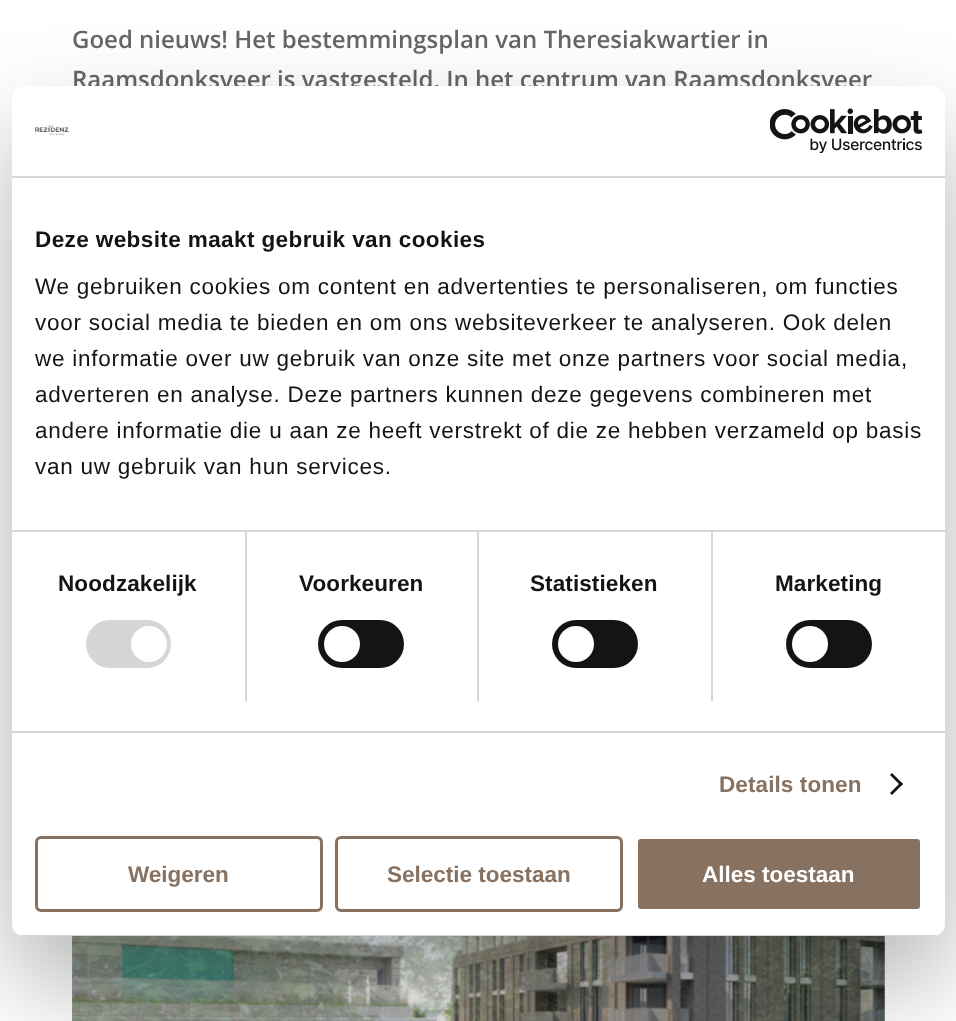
<svg xmlns="http://www.w3.org/2000/svg" width="956" height="1021" viewBox="0 0 956 1021">
  <defs>
    <filter id="blur1" x="-50%" y="-200%" width="200%" height="500%"><feGaussianBlur stdDeviation="51"/></filter>
    <clipPath id="clip1"><rect x="12" y="86" width="933" height="850" rx="12"/></clipPath>
  </defs>
  <rect width="100%" height="100%" fill="#ffffff"/>
  <text x="72" y="48" font-family="Open Sans" font-size="24" font-weight="600" fill="#666666">Goed nieuws! Het bestemmingsplan van Theresiakwartier in</text>
  <text x="72" y="88" font-family="Open Sans" font-size="24" font-weight="600" fill="#666666">Raamsdonksveer is vastgesteld. In het centrum van Raamsdonksveer</text>
  <image x="72" y="936" width="813" height="85" href="img1.png"/>
  <rect x="12" y="134" width="933" height="850" rx="12" fill="#000000" fill-opacity="0.3" filter="url(#blur1)"/>
  <rect x="12" y="86" width="933" height="850" rx="12" fill="#ffffff"/>
  <rect x="12" y="176" width="933" height="2" fill="#d6d6d6"/>
  <image x="35" y="125" width="34" height="11" href="img2.png"/>
  <image x="770" y="108" width="153" height="45" href="img3.png"/>
  <rect x="245" y="531" width="2" height="170" fill="#d6d6d6"/>
  <rect x="477" y="531" width="2" height="170" fill="#d6d6d6"/>
  <rect x="711" y="531" width="2" height="170" fill="#d6d6d6"/>
  <rect x="12" y="530" width="933" height="2" fill="#d6d6d6"/>
  <text x="35" y="247" font-family="Liberation Sans" font-size="22.5" font-weight="bold" letter-spacing="0.4" fill="#141414">Deze website maakt gebruik van cookies</text>
  <text x="35" y="294" font-family="Liberation Sans" font-size="22.5" letter-spacing="0.75" fill="#141414">We gebruiken cookies om content en advertenties te personaliseren, om functies</text>
  <text x="35" y="330" font-family="Liberation Sans" font-size="22.5" letter-spacing="0.75" fill="#141414">voor social media te bieden en om ons websiteverkeer te analyseren. Ook delen</text>
  <text x="35" y="366" font-family="Liberation Sans" font-size="22.5" letter-spacing="0.75" fill="#141414">we informatie over uw gebruik van onze site met onze partners voor social media,</text>
  <text x="35" y="402" font-family="Liberation Sans" font-size="22.5" letter-spacing="0.75" fill="#141414">adverteren en analyse. Deze partners kunnen deze gegevens combineren met</text>
  <text x="35" y="438" font-family="Liberation Sans" font-size="22.5" letter-spacing="0.75" fill="#141414">andere informatie die u aan ze heeft verstrekt of die ze hebben verzameld op basis</text>
  <text x="35" y="474" font-family="Liberation Sans" font-size="22.5" letter-spacing="0.75" fill="#141414">van uw gebruik van hun services.</text>
  <rect x="12" y="731" width="933" height="2" fill="#d6d6d6"/>
  <text x="58" y="591" font-family="Liberation Sans" font-size="22.5" font-weight="bold" letter-spacing="0.1" fill="#141414">Noodzakelijk</text>
  <rect x="86" y="620" width="85" height="48" rx="24" fill="#d6d6d6"/>
  <circle cx="149" cy="644" r="18" fill="#ffffff"/>
  <text x="299" y="591" font-family="Liberation Sans" font-size="22.5" font-weight="bold" letter-spacing="0.1" fill="#141414">Voorkeuren</text>
  <rect x="318" y="620" width="86" height="48" rx="24" fill="#141414"/>
  <circle cx="342" cy="644" r="18" fill="#ffffff"/>
  <text x="530" y="591" font-family="Liberation Sans" font-size="22.5" font-weight="bold" letter-spacing="0.1" fill="#141414">Statistieken</text>
  <rect x="552" y="620" width="86" height="48" rx="24" fill="#141414"/>
  <circle cx="576" cy="644" r="18" fill="#ffffff"/>
  <text x="775" y="591" font-family="Liberation Sans" font-size="22.5" font-weight="bold" letter-spacing="0.1" fill="#141414">Marketing</text>
  <rect x="786" y="620" width="86" height="48" rx="24" fill="#141414"/>
  <circle cx="810" cy="644" r="18" fill="#ffffff"/>
  <text x="719" y="792" font-family="Liberation Sans" font-size="22.5" font-weight="bold" letter-spacing="0.1" fill="#877261">Details tonen</text>
  <path d="M892 773L903 784L901 786L890 775Z" fill="#141414"/>
  <path d="M901 782L903 784L892 795L890 793Z" fill="#141414"/>
  <g clip-path="url(#clip1)">
    <rect x="12" y="935" width="933" height="1" fill="#d6d6d6"/>
  </g>
  <rect x="36.5" y="837.5" width="285" height="73" rx="4.5" fill="none" stroke="#877261" stroke-width="3"/>
  <text x="128" y="882" font-family="Liberation Sans" font-size="22.5" font-weight="bold" fill="#877261">Weigeren</text>
  <rect x="336.5" y="837.5" width="285" height="73" rx="4.5" fill="none" stroke="#877261" stroke-width="3"/>
  <text x="387" y="882" font-family="Liberation Sans" font-size="22.5" font-weight="bold" fill="#877261">Selectie toestaan</text>
  <rect x="636.5" y="837.5" width="285" height="73" rx="4.5" fill="#877261" stroke="#ffffff" stroke-width="3"/>
  <text x="702" y="882" font-family="Liberation Sans" font-size="22.5" font-weight="bold" fill="#ffffff">Alles toestaan</text>
</svg>
